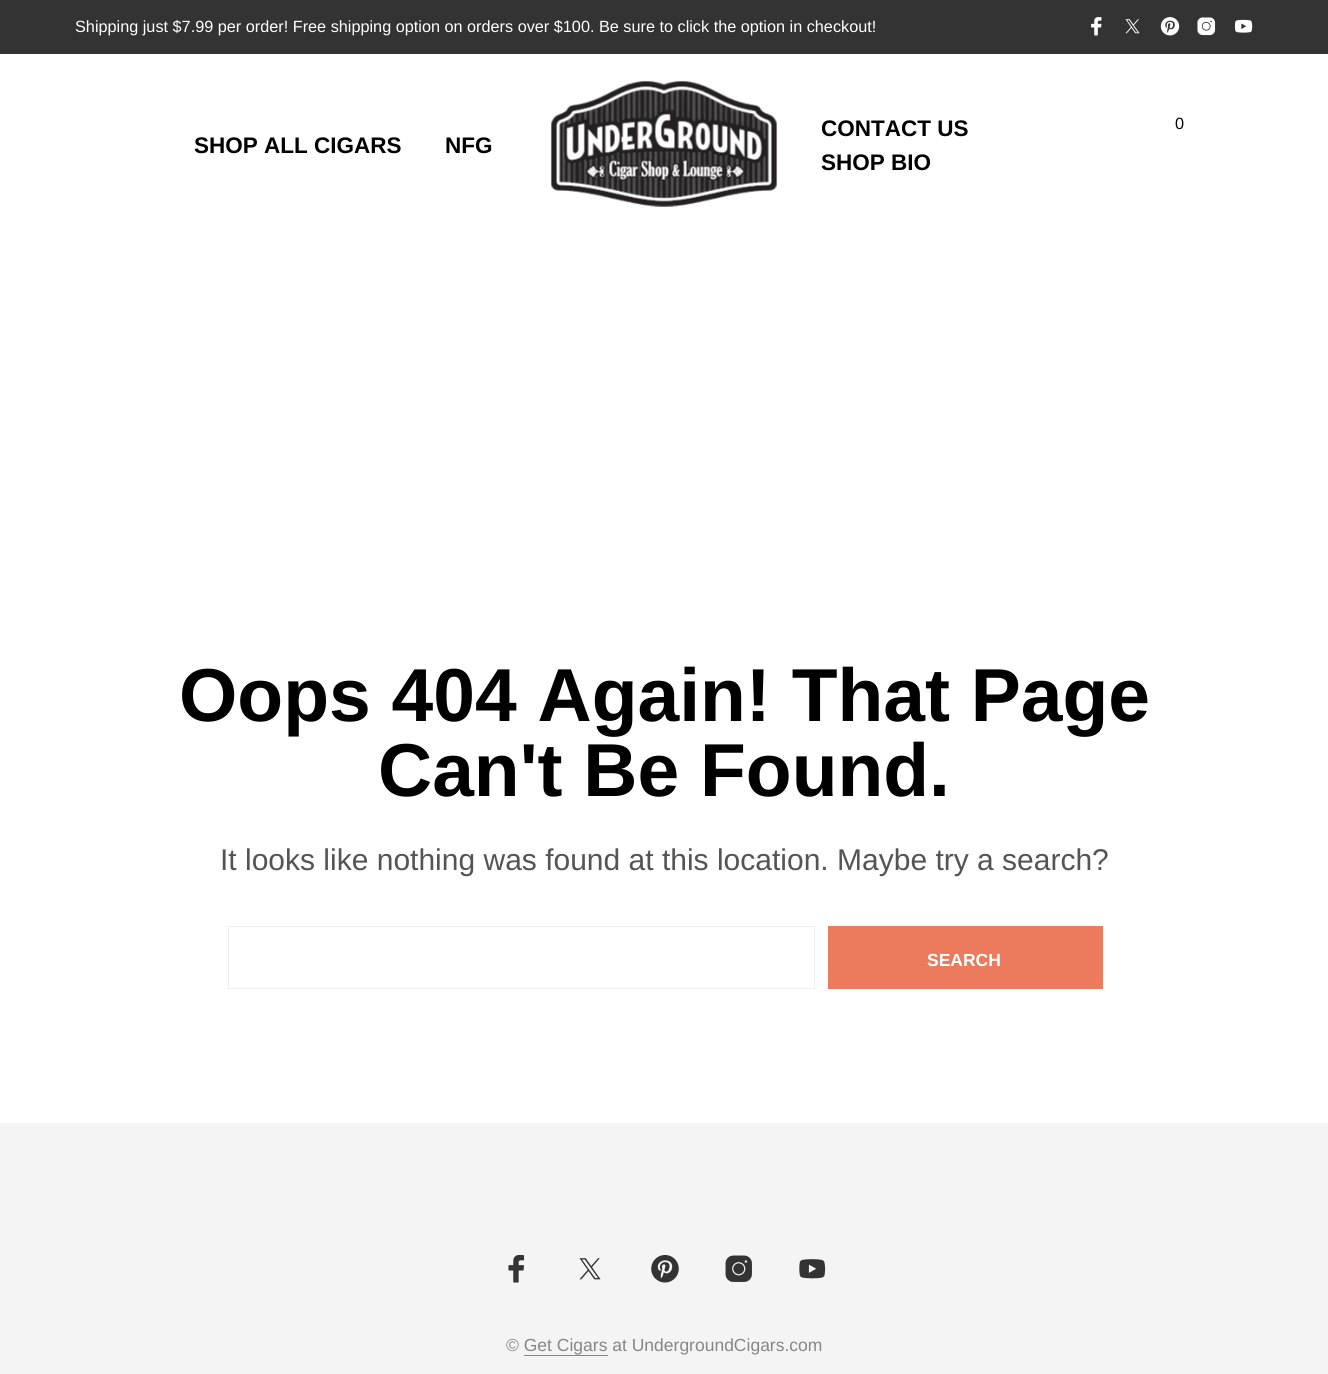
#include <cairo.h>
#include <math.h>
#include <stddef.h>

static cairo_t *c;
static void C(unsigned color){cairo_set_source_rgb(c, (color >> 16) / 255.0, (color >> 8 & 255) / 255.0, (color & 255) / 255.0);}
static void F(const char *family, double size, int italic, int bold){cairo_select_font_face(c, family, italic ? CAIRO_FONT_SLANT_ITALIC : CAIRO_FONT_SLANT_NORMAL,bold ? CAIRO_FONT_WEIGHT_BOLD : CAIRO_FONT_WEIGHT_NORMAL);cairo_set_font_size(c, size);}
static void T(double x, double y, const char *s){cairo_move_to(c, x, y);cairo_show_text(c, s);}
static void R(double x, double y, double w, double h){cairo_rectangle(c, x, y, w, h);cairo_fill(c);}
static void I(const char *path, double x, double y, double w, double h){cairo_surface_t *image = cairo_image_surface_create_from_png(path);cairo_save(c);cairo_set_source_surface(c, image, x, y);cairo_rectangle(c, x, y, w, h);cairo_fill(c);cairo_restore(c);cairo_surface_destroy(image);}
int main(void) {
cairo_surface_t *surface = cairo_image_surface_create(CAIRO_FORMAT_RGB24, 1328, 1374);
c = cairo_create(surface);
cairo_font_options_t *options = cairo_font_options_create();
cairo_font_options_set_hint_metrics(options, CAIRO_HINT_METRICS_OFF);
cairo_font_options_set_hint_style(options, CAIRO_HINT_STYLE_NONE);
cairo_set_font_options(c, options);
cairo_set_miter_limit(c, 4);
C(0xffffff);
cairo_paint(c);
C(0x333333);
R(0,0,1328,54);
F("Liberation Sans",16.25,0,0);
C(0xffffff);
T(75,32,"Shipping just $7.99 per order! Free shipping option on orders over $100. Be sure to click the option in checkout!");
I("1.png",1091,17,11,19);
I("2.png",1125,19,15,15);
I("3.png",1160,17,20,19);
I("4.png",1197,17,19,19);
I("5.png",1234,19,19,14);
F("Liberation Sans",22.5,0,1);
C(0x000000);
T(194,153,"SHOP ALL CIGARS");
T(445,153,"NFG");
I("6.png",550,80,228,127);
T(821,136,"CONTACT US");
T(821,170,"SHOP BIO");
F("Liberation Sans",16.25,0,0);
T(1175,129,"0");
F("Liberation Sans",75,0,1);
T(179,721,"Oops 404 Again! That Page");
T(378,796,"Can't Be Found.");
F("Liberation Sans",30,0,0);
C(0x545454);
T(220,870,"It looks like nothing was found at this location. Maybe try a search?");
cairo_rectangle(c,228.5,926.5,586,62);
C(0xeeeeee);
cairo_set_line_width(c,1);
cairo_stroke(c);
C(0xec7a5c);
R(828,926,275,63);
F("Liberation Sans",17.5,0,1);
C(0xffffff);
T(927,966,"SEARCH");
C(0xf4f4f4);
R(0,1123,1328,251);
I("7.png",508,1254,17,29);
I("8.png",579,1258,22,22);
I("9.png",651,1255,28,28);
I("10.png",725,1255,27,27);
I("11.png",799,1259,27,20);
F("Liberation Sans",17.5,0,0);
C(0x868686);
T(506,1351,"© Get Cigars at UndergroundCigars.com");
R(524,1355,84,1);
cairo_surface_write_to_png(surface, "o.png");
cairo_font_options_destroy(options);
cairo_destroy(c);
cairo_surface_destroy(surface);
return 0;
}
